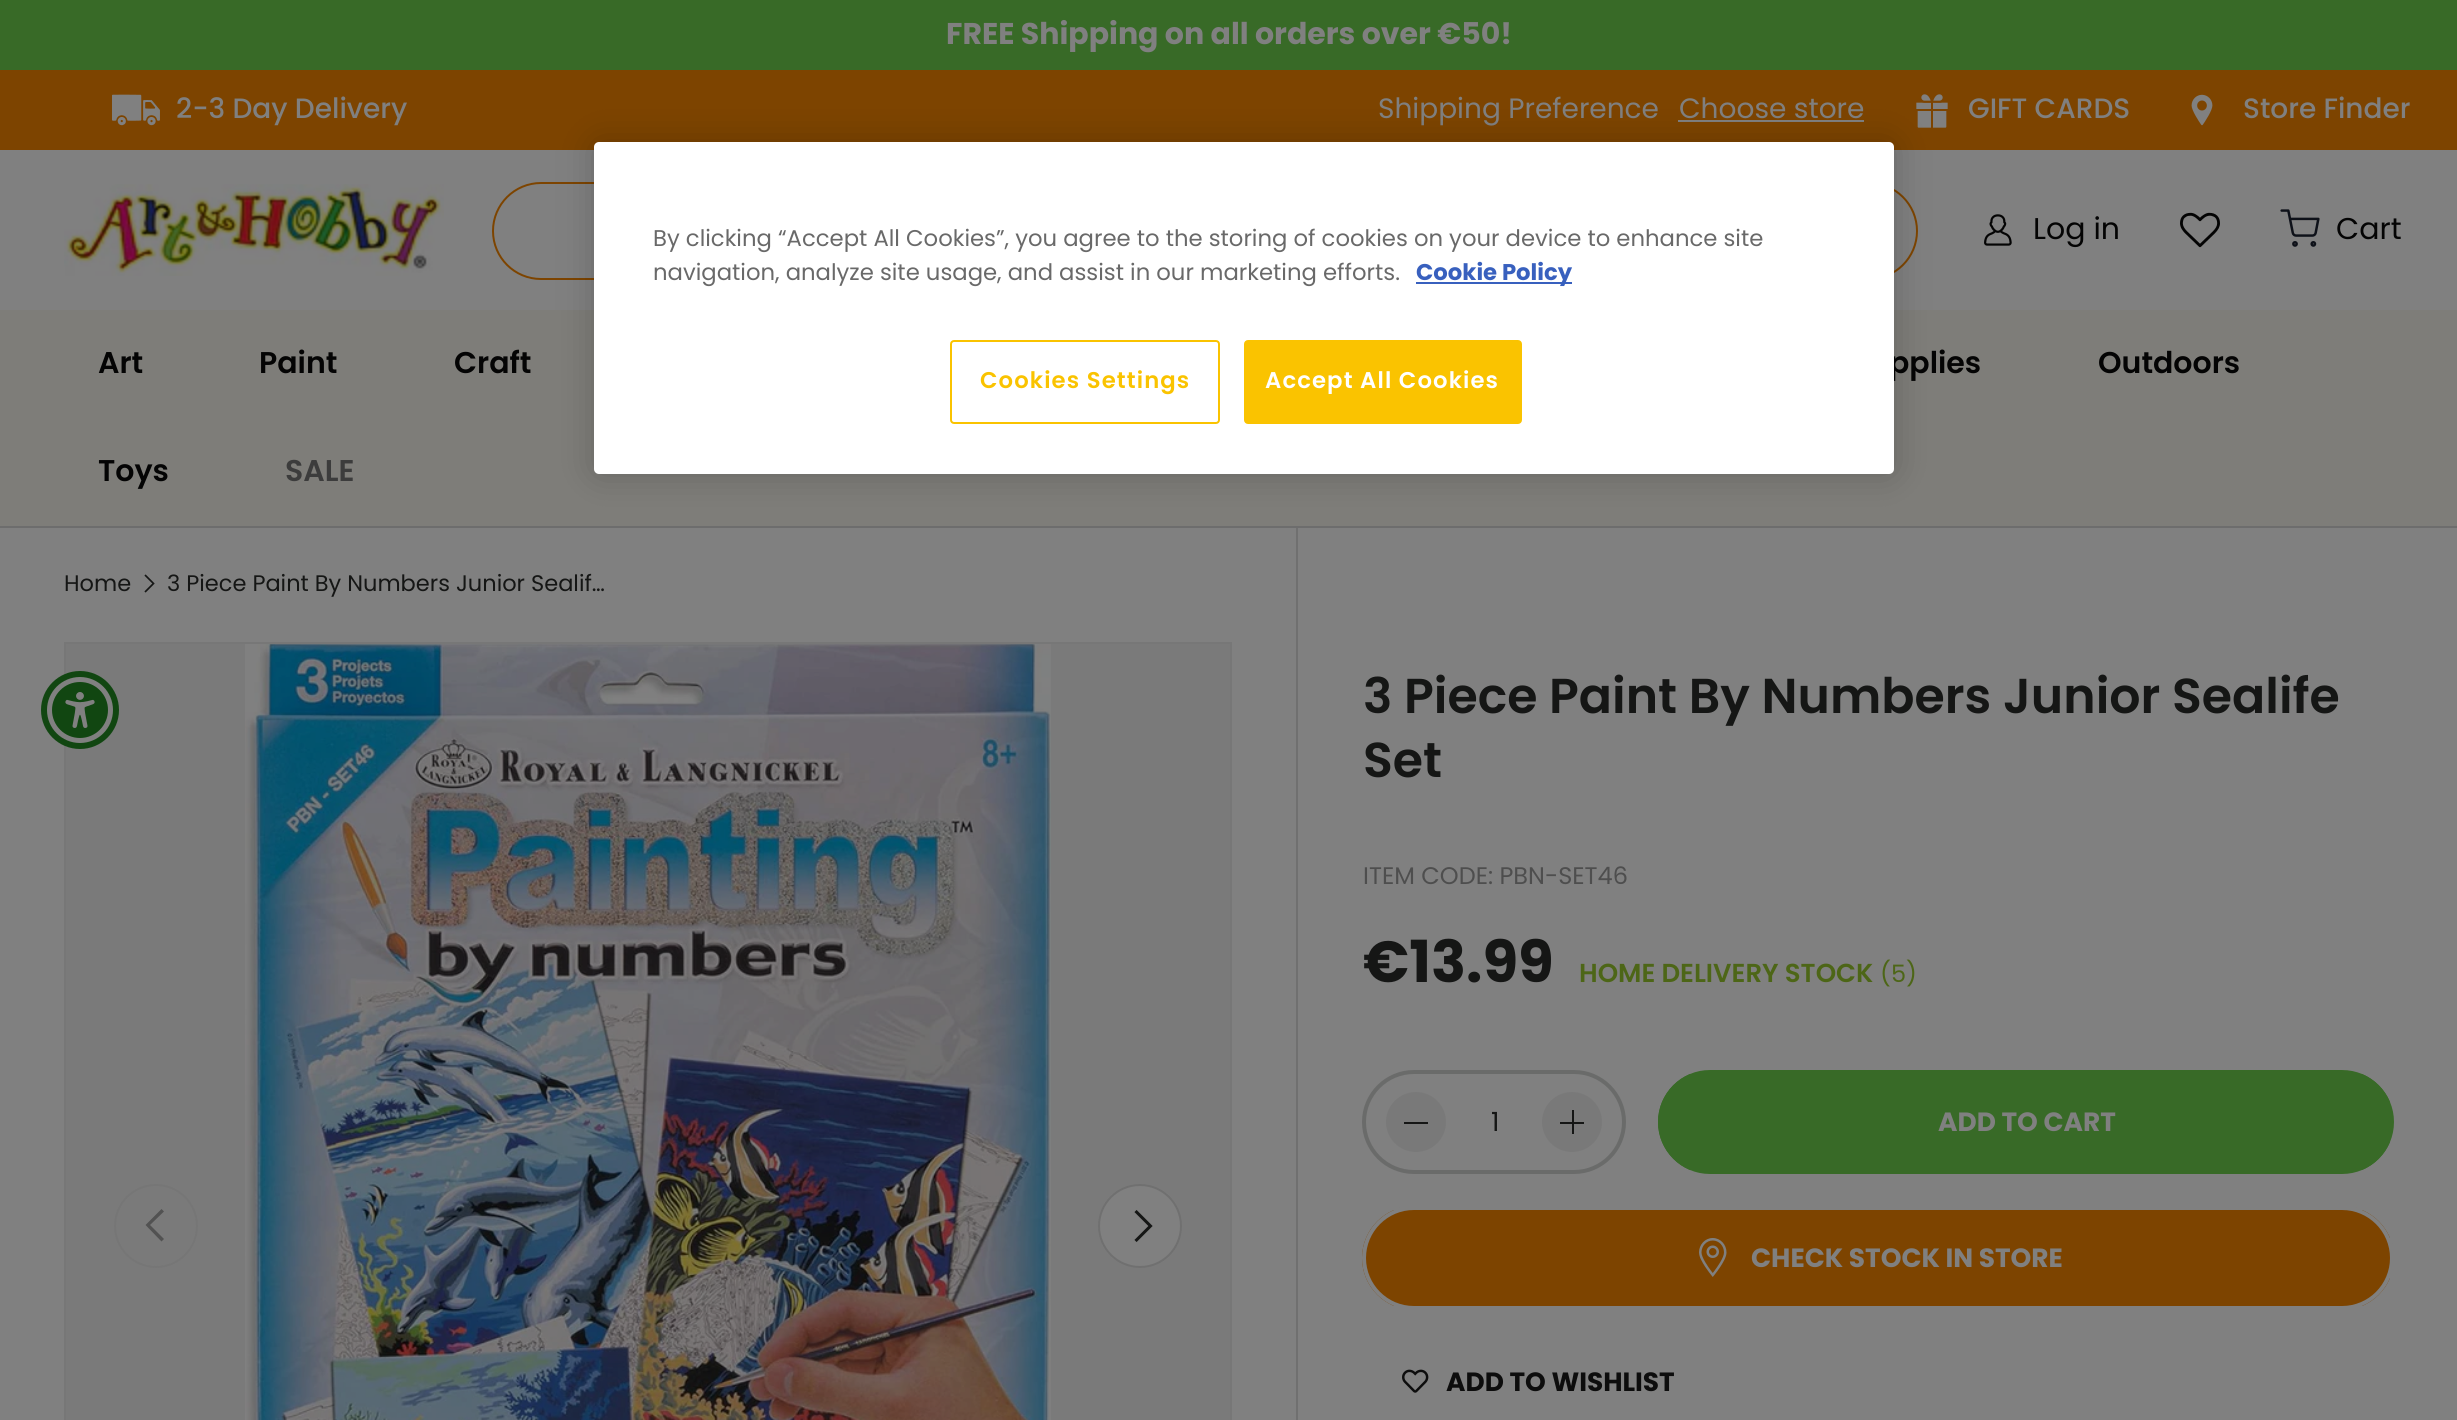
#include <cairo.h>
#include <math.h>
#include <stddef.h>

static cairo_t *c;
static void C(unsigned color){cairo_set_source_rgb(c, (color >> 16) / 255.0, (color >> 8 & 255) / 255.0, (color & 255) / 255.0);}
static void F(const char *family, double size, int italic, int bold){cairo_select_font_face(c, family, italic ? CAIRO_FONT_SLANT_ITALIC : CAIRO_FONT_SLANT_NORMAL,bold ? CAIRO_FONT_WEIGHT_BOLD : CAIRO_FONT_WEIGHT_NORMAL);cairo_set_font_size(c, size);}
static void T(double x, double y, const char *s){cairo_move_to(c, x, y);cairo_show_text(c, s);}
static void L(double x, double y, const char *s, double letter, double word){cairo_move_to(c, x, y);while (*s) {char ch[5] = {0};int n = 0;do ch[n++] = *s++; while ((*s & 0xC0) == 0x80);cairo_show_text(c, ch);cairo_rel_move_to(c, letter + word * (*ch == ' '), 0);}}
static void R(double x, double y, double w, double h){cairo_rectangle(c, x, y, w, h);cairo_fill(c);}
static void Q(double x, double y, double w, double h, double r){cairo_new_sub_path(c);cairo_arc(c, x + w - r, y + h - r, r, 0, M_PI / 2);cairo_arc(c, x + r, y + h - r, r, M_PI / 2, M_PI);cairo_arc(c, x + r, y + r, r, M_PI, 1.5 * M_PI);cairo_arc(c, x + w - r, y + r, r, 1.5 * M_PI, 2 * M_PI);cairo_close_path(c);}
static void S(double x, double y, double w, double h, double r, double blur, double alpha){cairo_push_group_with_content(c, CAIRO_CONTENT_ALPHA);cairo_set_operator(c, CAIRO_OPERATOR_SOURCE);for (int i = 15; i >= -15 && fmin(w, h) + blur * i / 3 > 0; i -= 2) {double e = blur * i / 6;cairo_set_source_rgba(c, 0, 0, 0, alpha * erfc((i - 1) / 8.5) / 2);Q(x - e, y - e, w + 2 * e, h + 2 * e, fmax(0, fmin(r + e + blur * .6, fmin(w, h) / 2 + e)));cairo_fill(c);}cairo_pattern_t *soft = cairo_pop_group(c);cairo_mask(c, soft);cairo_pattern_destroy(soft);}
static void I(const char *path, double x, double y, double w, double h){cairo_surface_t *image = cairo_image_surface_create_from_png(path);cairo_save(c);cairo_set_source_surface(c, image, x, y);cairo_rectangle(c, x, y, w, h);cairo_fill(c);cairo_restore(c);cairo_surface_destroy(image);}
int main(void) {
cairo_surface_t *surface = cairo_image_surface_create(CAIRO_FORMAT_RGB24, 2457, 1420);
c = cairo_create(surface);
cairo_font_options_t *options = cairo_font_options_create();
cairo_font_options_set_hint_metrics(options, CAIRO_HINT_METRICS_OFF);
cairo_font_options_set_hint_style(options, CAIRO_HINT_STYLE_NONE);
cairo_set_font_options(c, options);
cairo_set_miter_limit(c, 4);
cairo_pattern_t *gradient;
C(0x808080);
cairo_paint(c);
C(0x386a27);
R(0,0,2457,70);
F("Poppins",30,0,1);
C(0x808080);
T(946,44,"FREE Shipping on all orders over €50!");
C(0x7d4400);
R(0,70,2457,80);
I("1.png",112,94,48,32);
F("Poppins Medium",28,0,0);
C(0x808080);
T(176,118,"2-3 Day Delivery");
F("Poppins",28,0,0);
T(1378,118,"Shipping Preference");
T(1679,118,"Choose store");
R(1678,120,186,2);
I("2.png",1916,94,32,34);
F("Poppins Medium",28,0,0);
T(1968,118,"GIFT CARDS");
I("3.png",2191,94,22,32);
T(2243,118,"Store Finder");
C(0x6d6d6d);
R(0,526,2457,2);
I("4.png",64,184,380,92);
Q(493,183,1424,96,48);
C(0x7d4400);
cairo_stroke(c);
I("5.png",1984,214,28,32);
F("Poppins",30,0,0);
C(0x040404);
T(2033,239,"Log in");
I("6.png",2180,212,40,36);
I("7.png",2280,209,40,38);
T(2336,239,"Cart");
C(0x7e7d79);
R(0,310,2457,216);
F("Poppins SemiBold",30,0,0);
C(0x040404);
T(98,373,"Art");
T(259,373,"Paint");
T(454,373,"Craft");
T(1889,373,"pplies");
T(2098,373,"Outdoors");
T(98,481,"Toys");
C(0x3c3c3c);
T(285,481,"SALE");
C(0x707070);
R(1296,528,2,892);
C(0x000000);
S(594,142,1300,332,5,18,.2);
C(0xffffff);
Q(594,142,1300,332,5);
cairo_fill(c);
F("Poppins",22.75,0,0);
C(0x696969);
T(653,246,"By clicking “Accept All Cookies”, you agree to the storing of cookies on your device to enhance site");
T(653,280,"navigation, analyze site usage, and assist in our marketing efforts.");
C(0x3860be);
R(1416,282,156,2);
F("Poppins",22.75,0,1);
T(1416,280,"Cookie Policy");
Q(951,341,268,82,3);
C(0xfac300);
cairo_stroke(c);
F("Poppins SemiBold",22.75,0,0);
L(980,388,"Cookies Settings",1.1,0);
Q(1245,341,276,82,3);
cairo_fill_preserve(c);
cairo_stroke(c);
C(0xffffff);
L(1265,388,"Accept All Cookies",1.1,0);
F("Poppins",22.5,0,0);
C(0x151615);
T(64,591,"Home");
cairo_new_path(c);
cairo_move_to(c,145,575);
cairo_line_to(c,153.5,583.5);
cairo_line_to(c,145,592);
cairo_set_line_width(c,1.7);
cairo_stroke(c);
T(167,591,"3 Piece Paint By Numbers Junior Sealif…");
C(0x7a7a7a);
cairo_rectangle(c,65,643,1166,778);
cairo_fill_preserve(c);
C(0x777777);
cairo_set_line_width(c,2);
cairo_stroke(c);
I("8.png",245,644,806,776);
cairo_arc(c,156,1226,41,0,2 * M_PI);
C(0x767676);
cairo_stroke(c);
C(0x525252);
cairo_new_path(c);
cairo_move_to(c,145.5,1225);
cairo_line_to(c,161.5,1209);
cairo_line_to(c,164,1211.5);
cairo_line_to(c,150,1225);
cairo_line_to(c,164,1239);
cairo_line_to(c,161.5,1241.5);
cairo_close_path(c);
cairo_fill(c);
C(0x808080);
cairo_arc(c,1140,1226,42,0,2 * M_PI);
cairo_fill(c);
cairo_arc(c,1140,1226,41,0,2 * M_PI);
cairo_set_source_rgba(c,0.082,0.086,0.082,0.15);
cairo_stroke(c);
cairo_new_path(c);
cairo_move_to(c,1135.5,1211);
cairo_line_to(c,1150.5,1226);
cairo_line_to(c,1135.5,1241);
C(0x151615);
cairo_set_line_width(c,3);
cairo_stroke(c);
F("Poppins SemiBold",49,0,0);
T(1363,713,"3 Piece Paint By Numbers Junior Sealife");
T(1363,777,"Set");
F("Poppins",24,0,0);
C(0x4e4e4e);
T(1363,884,"ITEM CODE: PBN-SET46");
F("Poppins",58,0,1);
C(0x151615);
T(1363,982,"€13.99");
F("Poppins SemiBold",26,0,0);
C(0x4d6617);
T(1579,982,"HOME DELIVERY STOCK");
F("Poppins",24,0,0);
T(1880,982,"(5)");
Q(1364,1072,260,100,50);
C(0x6a6b6a);
cairo_set_line_width(c,4);
cairo_stroke(c);
C(0x797979);
cairo_arc(c,1416,1122,30,0,2 * M_PI);
cairo_fill(c);
C(0x151615);
R(1404,1122,24,2);
F("Poppins",26.4,0,0);
T(1491,1131,"1");
C(0x797979);
cairo_new_path(c);
cairo_arc(c,1572,1122,30,0,2 * M_PI);
cairo_fill(c);
C(0x151615);
R(1560,1122,24,2);
R(1572,1110,2,24);
cairo_save(c);
Q(1658,1070,736,104,52);
cairo_clip(c);
gradient = cairo_pattern_create_linear(259,863,2337,1381);
cairo_pattern_add_color_stop_rgba(gradient,.6,0.282,0.435,0.231,1);
cairo_pattern_add_color_stop_rgba(gradient,.6,0.22,0.416,0.153,1);
cairo_pattern_add_color_stop_rgba(gradient,1,0.22,0.416,0.153,1);
cairo_set_source(c,gradient);
cairo_pattern_destroy(gradient);
R(1658,1074,732,96);
cairo_restore(c);
Q(1660,1072,732,100,50);
C(0x386a27);
cairo_stroke(c);
F("Poppins",26.4,0,1);
C(0x808080);
T(1938,1131,"ADD TO CART");
cairo_save(c);
Q(1362,1206,1032,104,52);
cairo_clip(c);
gradient = cairo_pattern_create_linear(-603,895,2311,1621);
cairo_pattern_add_color_stop_rgba(gradient,.6,0.502,0.502,0.502,.07);
cairo_pattern_add_color_stop_rgba(gradient,.6,0.49,0.267,0,1);
cairo_pattern_add_color_stop_rgba(gradient,1,0.49,0.267,0,1);
cairo_set_source(c,gradient);
cairo_pattern_destroy(gradient);
R(1362,1210,1028,96);
cairo_restore(c);
Q(1364,1208,1028,100,50);
cairo_stroke(c);
I("9.png",1699,1238,28,39);
T(1751,1267,"CHECK STOCK IN STORE");
I("10.png",1402,1369,27,24);
C(0x0d0d0d);
T(1446,1391,"ADD TO WISHLIST");
C(0x114611);
cairo_new_path(c);
cairo_arc(c,80,710,39,0,2 * M_PI);
cairo_fill(c);
C(0x808080);
cairo_arc(c,80,710,33,0,2 * M_PI);
cairo_fill(c);
C(0x114611);
cairo_arc(c,80,710,28,0,2 * M_PI);
cairo_fill(c);
I("11.png",65,692,30,36);
cairo_surface_write_to_png(surface, "o.png");
cairo_font_options_destroy(options);
cairo_destroy(c);
cairo_surface_destroy(surface);
return 0;
}
